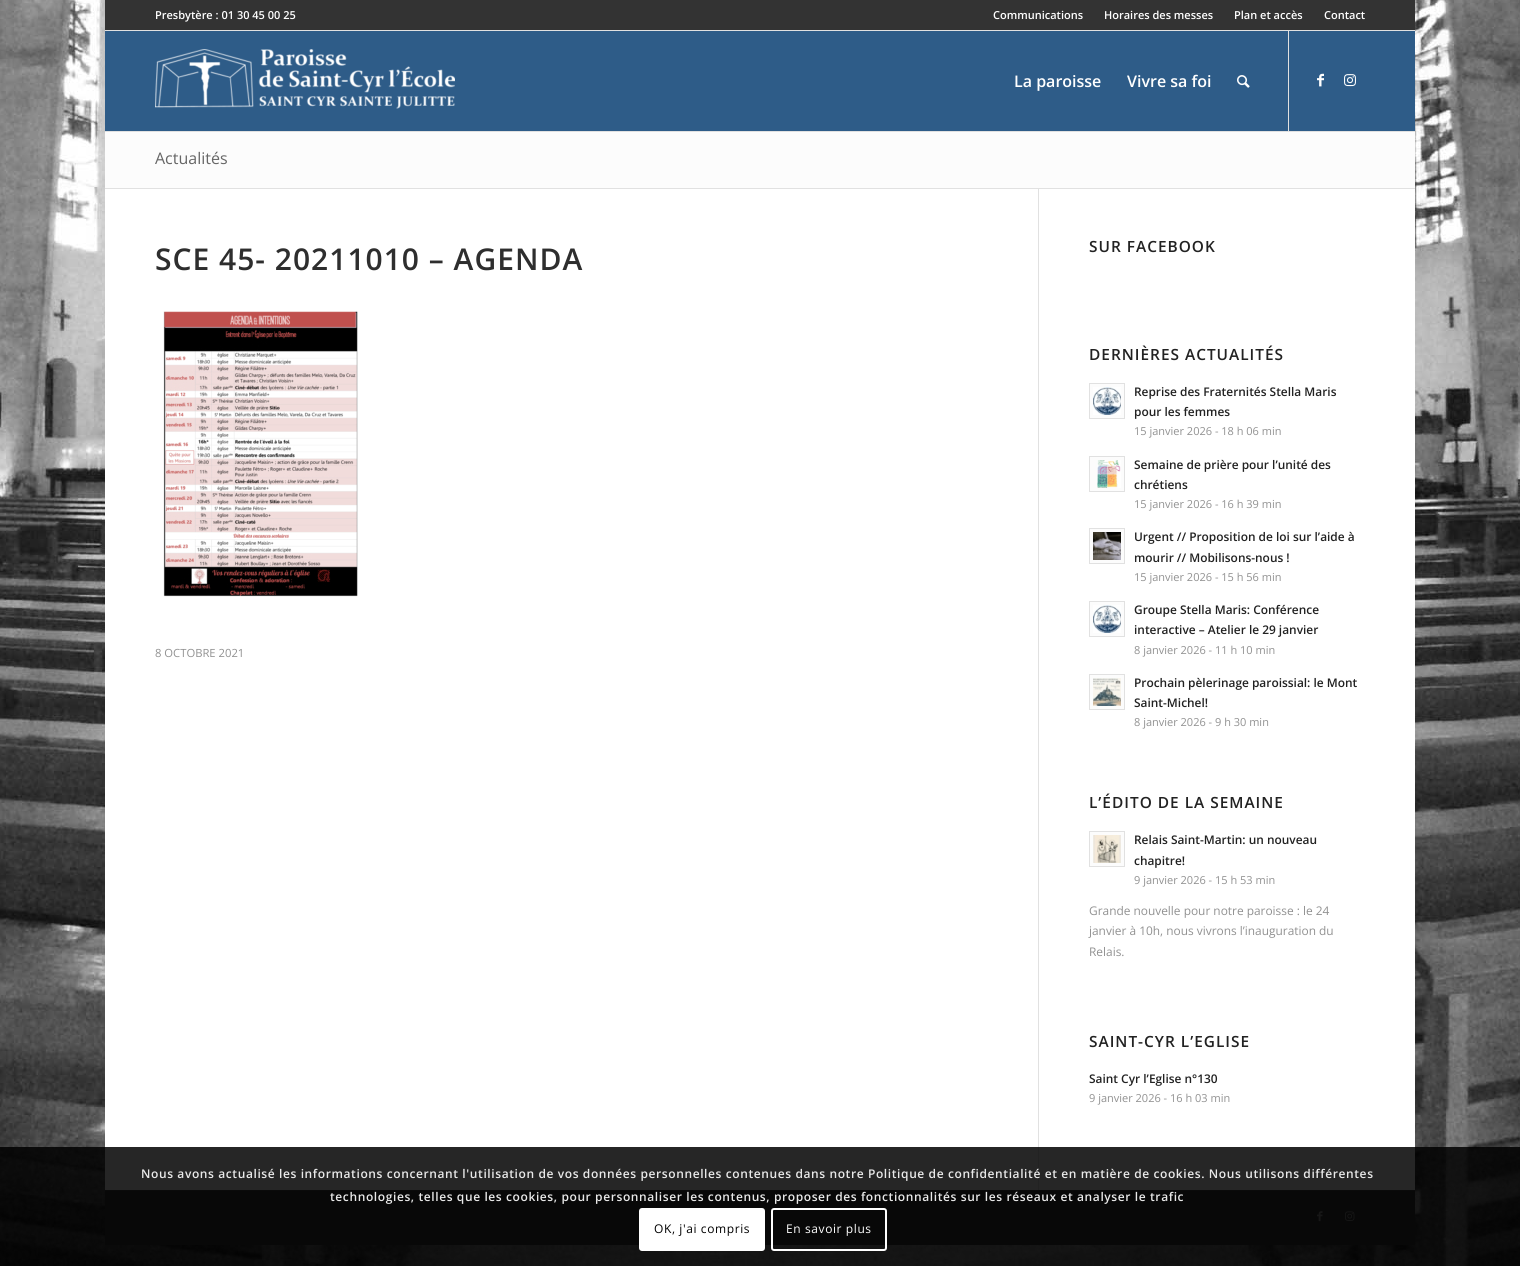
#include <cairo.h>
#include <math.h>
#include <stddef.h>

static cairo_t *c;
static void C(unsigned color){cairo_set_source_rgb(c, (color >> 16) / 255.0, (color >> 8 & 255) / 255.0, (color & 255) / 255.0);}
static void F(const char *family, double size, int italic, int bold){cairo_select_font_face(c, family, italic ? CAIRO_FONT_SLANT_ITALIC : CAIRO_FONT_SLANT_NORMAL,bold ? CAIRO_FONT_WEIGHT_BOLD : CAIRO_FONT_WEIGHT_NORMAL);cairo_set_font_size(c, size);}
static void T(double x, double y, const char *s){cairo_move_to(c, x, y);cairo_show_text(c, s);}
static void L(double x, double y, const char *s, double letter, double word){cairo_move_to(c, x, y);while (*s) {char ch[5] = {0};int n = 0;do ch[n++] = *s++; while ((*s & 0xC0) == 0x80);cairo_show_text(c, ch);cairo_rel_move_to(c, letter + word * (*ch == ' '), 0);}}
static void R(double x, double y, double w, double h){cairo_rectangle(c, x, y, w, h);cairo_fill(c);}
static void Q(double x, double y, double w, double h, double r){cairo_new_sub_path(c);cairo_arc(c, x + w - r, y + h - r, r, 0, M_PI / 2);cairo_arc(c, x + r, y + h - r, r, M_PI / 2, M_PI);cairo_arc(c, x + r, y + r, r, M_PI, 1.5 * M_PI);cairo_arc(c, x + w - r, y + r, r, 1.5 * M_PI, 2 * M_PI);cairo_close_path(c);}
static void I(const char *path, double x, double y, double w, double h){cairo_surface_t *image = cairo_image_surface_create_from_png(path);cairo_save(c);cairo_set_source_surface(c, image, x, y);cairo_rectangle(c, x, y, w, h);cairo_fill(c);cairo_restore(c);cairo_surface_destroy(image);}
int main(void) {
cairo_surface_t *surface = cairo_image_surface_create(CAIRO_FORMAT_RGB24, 1520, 1266);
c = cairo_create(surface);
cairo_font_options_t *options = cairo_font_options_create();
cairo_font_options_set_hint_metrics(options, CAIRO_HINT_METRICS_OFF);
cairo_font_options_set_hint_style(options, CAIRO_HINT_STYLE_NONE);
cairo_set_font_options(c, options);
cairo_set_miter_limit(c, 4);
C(0xffffff);
cairo_paint(c);
I("1.png",0,0,1520,1266);
C(0x333333);
R(105,0,1310,30);
C(0xe1e1e1);
R(105,30,1310,1);
F("Open Sans SemiBold",11,0,0);
C(0xffffff);
T(155,19,"Presbytère : 01 30 45 00 25");
T(993,19,"Communications");
T(1104,19,"Horaires des messes");
T(1234,19,"Plan et accès");
T(1324,19,"Contact");
C(0xe1e1e1);
R(105,131,1310,1);
C(0x2e5c88);
R(105,31,1310,100);
I("2.png",155,49,300,60);
C(0xe1e1e1);
R(1288,31,1,100);
F("Open Sans SemiBold",16,0,0);
C(0xffffff);
T(1014,87,"La paroisse");
T(1127,87,"Vivre sa foi");
I("3.png",1237,75,13,13);
I("4.png",1317,73,7,14);
I("5.png",1344,74,12,13);
R(105,189,1310,1001);
C(0xfcfcfc);
R(105,132,1310,56);
F("Open Sans",16,0,0);
C(0x666666);
T(155,164,"Actualités");
C(0xe1e1e1);
R(105,188,1310,1);
F("Open Sans SemiBold",30,0,0);
C(0x2e2e2e);
L(155,270,"SCE 45- 20211010 – AGENDA",1,0);
I("6.png",163,311,195,286);
F("Open Sans",11.25,0,0);
C(0x919191);
T(155,657,"8 OCTOBRE 2021");
C(0xe1e1e1);
R(1038,189,1,1002);
F("Open Sans SemiBold",15.4,0,0);
C(0x222222);
L(1089,252,"SUR FACEBOOK",1,0);
L(1089,360,"DERNIÈRES ACTUALITÉS",1,0);
C(0xfcfcfc);
cairo_rectangle(c,1089.5,383.5,35,35);
cairo_fill_preserve(c);
C(0xe1e1e1);
cairo_set_line_width(c,1);
cairo_stroke(c);
I("7.png",1093,387,28,28);
F("Open Sans SemiBold",11.9,0,0);
C(0x222222);
T(1134,396,"Reprise des Fraternités Stella Maris");
T(1134,416,"pour les femmes");
F("Open Sans",11,0,0);
C(0x919191);
T(1134,435,"15 janvier 2026 - 18 h 06 min");
C(0xfcfcfc);
cairo_rectangle(c,1089.5,456.5,35,35);
cairo_fill_preserve(c);
C(0xe1e1e1);
cairo_stroke(c);
I("8.png",1097,460,24,28);
F("Open Sans SemiBold",11.9,0,0);
C(0x222222);
T(1134,469,"Semaine de prière pour l’unité des");
T(1134,489,"chrétiens");
F("Open Sans",11,0,0);
C(0x919191);
T(1134,508,"15 janvier 2026 - 16 h 39 min");
C(0xfcfcfc);
cairo_rectangle(c,1089.5,528.5,35,35);
cairo_fill_preserve(c);
C(0xe1e1e1);
cairo_stroke(c);
I("9.png",1093,532,28,28);
F("Open Sans SemiBold",11.9,0,0);
C(0x222222);
T(1134,541,"Urgent // Proposition de loi sur l’aide à");
T(1134,562,"mourir // Mobilisons-nous !");
F("Open Sans",11,0,0);
C(0x919191);
T(1134,581,"15 janvier 2026 - 15 h 56 min");
C(0xfcfcfc);
cairo_rectangle(c,1089.5,601.5,35,35);
cairo_fill_preserve(c);
C(0xe1e1e1);
cairo_stroke(c);
I("10.png",1093,605,28,28);
F("Open Sans SemiBold",11.9,0,0);
C(0x222222);
T(1134,614,"Groupe Stella Maris: Conférence");
T(1134,634,"interactive – Atelier le 29 janvier");
F("Open Sans",11,0,0);
C(0x919191);
T(1134,654,"8 janvier 2026 - 11 h 10 min");
C(0xfcfcfc);
cairo_rectangle(c,1089.5,674.5,35,35);
cairo_fill_preserve(c);
C(0xe1e1e1);
cairo_stroke(c);
I("11.png",1093,678,28,28);
F("Open Sans SemiBold",11.9,0,0);
C(0x222222);
T(1134,687,"Prochain pèlerinage paroissial: le Mont");
T(1134,707,"Saint-Michel!");
F("Open Sans",11,0,0);
C(0x919191);
T(1134,726,"8 janvier 2026 - 9 h 30 min");
F("Open Sans SemiBold",15.4,0,0);
C(0x222222);
L(1089,808,"L’ÉDITO DE LA SEMAINE",1,0);
C(0xfcfcfc);
cairo_rectangle(c,1089.5,831.5,35,35);
cairo_fill_preserve(c);
C(0xe1e1e1);
cairo_stroke(c);
I("12.png",1093,835,28,28);
F("Open Sans SemiBold",11.9,0,0);
C(0x222222);
T(1134,844,"Relais Saint-Martin: un nouveau");
T(1134,865,"chapitre!");
F("Open Sans",11,0,0);
C(0x919191);
T(1134,884,"9 janvier 2026 - 15 h 53 min");
F("Open Sans",11.9,0,0);
T(1089,915,"Grande nouvelle pour notre paroisse : le 24");
T(1089,935,"janvier à 10h, nous vivrons l’inauguration du");
T(1089,956,"Relais.");
F("Open Sans SemiBold",15.4,0,0);
C(0x222222);
L(1089,1047,"SAINT-CYR L’EGLISE",1,0);
F("Open Sans SemiBold",11.9,0,0);
T(1089,1083,"Saint Cyr l’Eglise n°130");
F("Open Sans",11,0,0);
C(0x919191);
T(1089,1102,"9 janvier 2026 - 16 h 03 min");
C(0x333333);
R(105,1191,1310,54);
C(0x444444);
R(105,1190,1310,1);
I("13.png",1317,1211,6,11);
I("14.png",1345,1211,10,10);
cairo_set_source_rgba(c,0,0,0,0.85);
R(0,1147,1520,119);
F("Open Sans SemiBold",12,0,0);
C(0xe9e9e9);
L(141,1178,"Nous avons actualisé les informations concernant l'utilisation de vos données personnelles contenues dans notre Politique de confidentialité et en matière de cookies. Nous utilisons différentes",.6,0);
L(330,1201,"technologies, telles que les cookies, pour personnaliser les contenus, proposer des fonctionnalités sur les réseaux et analyser le trafic",.6,0);
C(0xffffff);
Q(639,1208,126,43,3);
cairo_fill(c);
F("Open Sans",12,0,0);
C(0x000000);
L(654,1233,"OK, j'ai compris",.6,0);
Q(772,1209,114,41,2);
C(0xffffff);
cairo_set_line_width(c,2);
cairo_stroke(c);
L(786,1233,"En savoir plus",.6,0);
cairo_surface_write_to_png(surface, "o.png");
cairo_font_options_destroy(options);
cairo_destroy(c);
cairo_surface_destroy(surface);
return 0;
}
